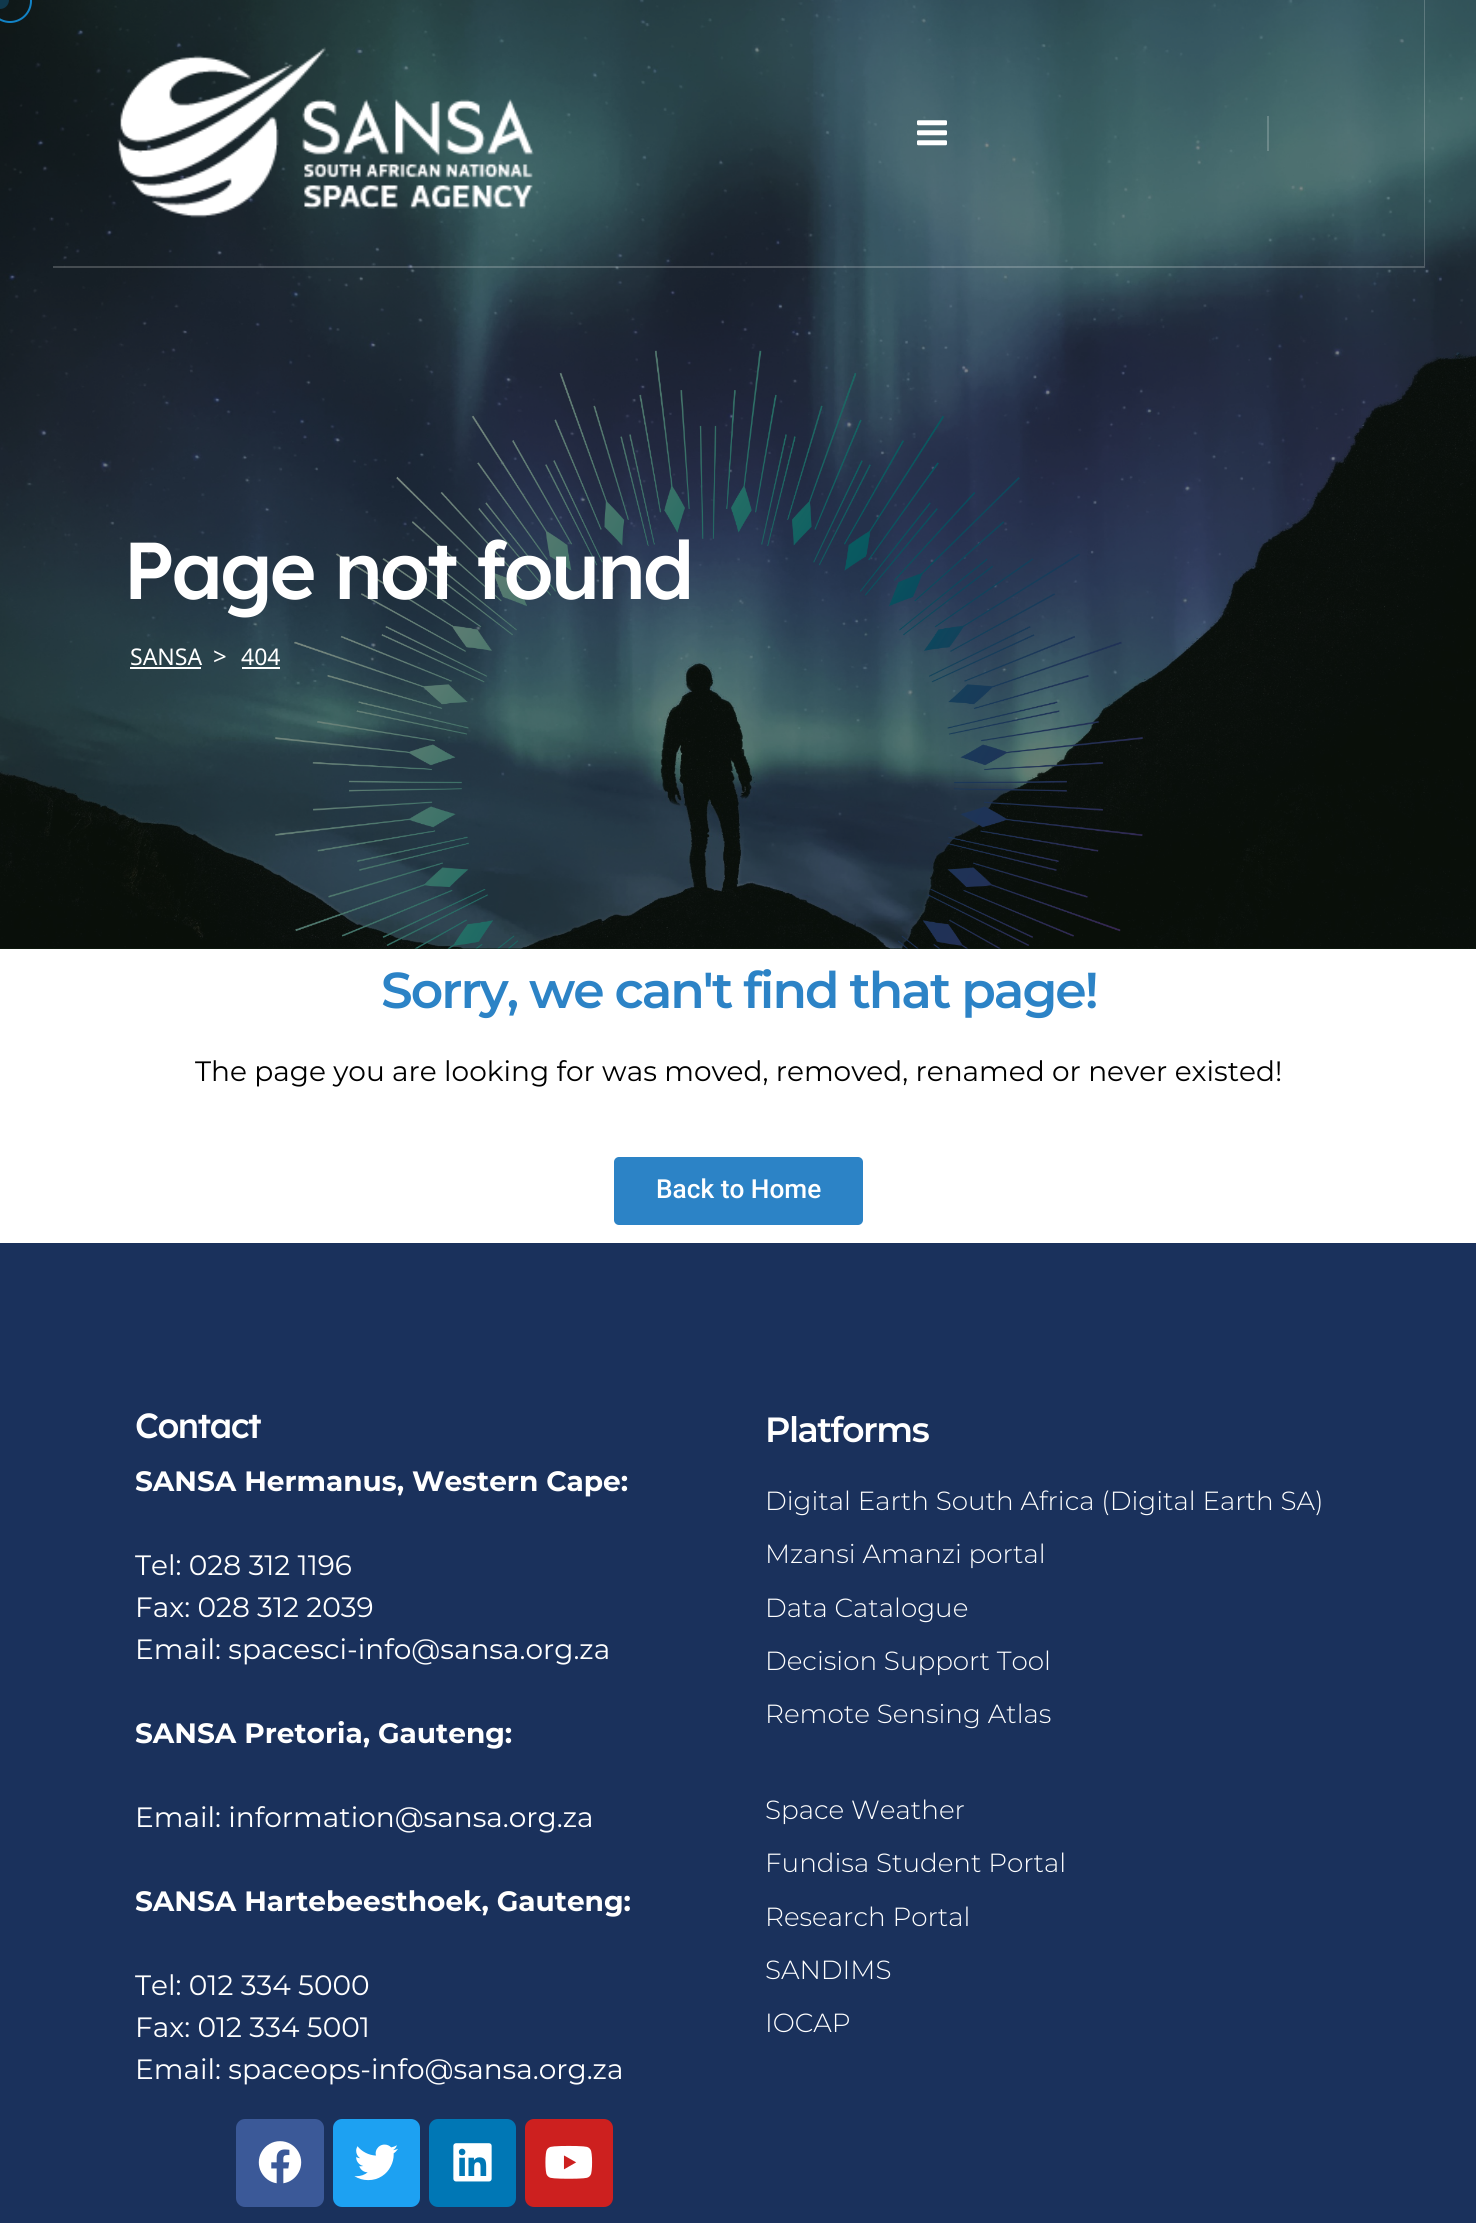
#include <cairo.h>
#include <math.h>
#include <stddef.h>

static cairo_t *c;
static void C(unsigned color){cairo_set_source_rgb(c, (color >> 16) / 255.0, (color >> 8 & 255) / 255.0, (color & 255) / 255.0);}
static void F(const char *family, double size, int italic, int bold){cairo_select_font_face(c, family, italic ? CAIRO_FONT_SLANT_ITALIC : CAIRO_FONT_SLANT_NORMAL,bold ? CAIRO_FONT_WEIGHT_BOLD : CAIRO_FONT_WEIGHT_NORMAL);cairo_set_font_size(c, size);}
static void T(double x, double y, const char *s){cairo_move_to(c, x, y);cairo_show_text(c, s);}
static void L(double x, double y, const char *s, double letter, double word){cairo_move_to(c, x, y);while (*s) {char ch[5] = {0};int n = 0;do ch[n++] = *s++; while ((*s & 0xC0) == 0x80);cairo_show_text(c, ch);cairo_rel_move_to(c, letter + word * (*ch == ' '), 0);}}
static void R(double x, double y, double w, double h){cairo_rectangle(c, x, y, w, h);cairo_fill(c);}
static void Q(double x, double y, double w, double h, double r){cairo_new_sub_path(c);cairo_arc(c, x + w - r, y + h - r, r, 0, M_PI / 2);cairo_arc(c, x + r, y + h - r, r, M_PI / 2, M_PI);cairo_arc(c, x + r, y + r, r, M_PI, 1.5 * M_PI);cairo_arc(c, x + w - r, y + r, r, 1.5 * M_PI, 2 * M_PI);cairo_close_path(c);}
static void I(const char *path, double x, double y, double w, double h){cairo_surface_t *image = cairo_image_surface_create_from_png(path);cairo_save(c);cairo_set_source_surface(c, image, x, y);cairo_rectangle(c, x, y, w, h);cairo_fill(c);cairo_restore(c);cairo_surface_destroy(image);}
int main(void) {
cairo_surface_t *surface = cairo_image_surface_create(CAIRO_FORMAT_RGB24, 1476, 2223);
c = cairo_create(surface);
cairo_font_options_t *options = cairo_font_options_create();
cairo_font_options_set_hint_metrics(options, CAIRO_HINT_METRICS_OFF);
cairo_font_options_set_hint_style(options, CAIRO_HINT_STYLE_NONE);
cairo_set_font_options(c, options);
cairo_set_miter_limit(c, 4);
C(0xffffff);
cairo_paint(c);
C(0x121f12);
R(0,0,1476,949);
I("3.png",0,0,1476,949);
cairo_arc(c,10,1,21,0,2 * M_PI);
C(0x1283c6);
cairo_stroke(c);
C(0x10384c);
cairo_arc(c,0,0,9,0,2 * M_PI);
cairo_fill(c);
cairo_set_source_rgba(c,1,1,1,0.2);
cairo_new_path(c);
cairo_move_to(c,53,266);
cairo_line_to(c,53,268);
cairo_line_to(c,1425,268);
cairo_line_to(c,1425,0);
cairo_line_to(c,1424,0);
cairo_line_to(c,1424,266);
cairo_close_path(c);
cairo_fill(c);
I("1.png",117,47,417,171);
I("2.png",917,120,30,26);
R(1267,116,2,35);
F("Lexend Medium",80.5,0,0);
C(0xffffff);
L(123,599,"Page not found",-3.25,0);
F("Noto Sans",23,0,0);
T(130,665,"SANSA");
R(130,667,71,2);
F("Noto Sans",24,0,0);
T(213,665,">");
F("Noto Sans",23,0,0);
T(241,665,"404");
R(242,667,38,2);
F("Montserrat SemiBold",50.4,0,0);
C(0x2c83c6);
L(381,1008,"Sorry, we can't find that page!",-2,0);
F("Montserrat",28,0,0);
C(0x000000);
T(195,1081,"The page you are looking for was moved, removed, renamed or never existed!");
C(0x2c83c6);
Q(614,1157,249,68,5);
cairo_fill(c);
F("Roboto Medium",26.25,0,0);
C(0xffffff);
T(656,1198,"Back to Home");
C(0x1a315c);
R(0,1243,1476,980);
F("Lexend Medium",35,0,0);
C(0xffffff);
L(135,1438,"Contact",-1.5,0);
F("Montserrat",28,0,1);
T(135,1491,"SANSA Hermanus, Western Cape:");
F("Montserrat",28,0,0);
T(135,1575,"Tel: 028 312 1196");
T(135,1617,"Fax: 028 312 2039");
T(135,1659,"Email: spacesci-info@sansa.org.za");
F("Montserrat",28,0,1);
T(135,1743,"SANSA Pretoria, Gauteng:");
F("Montserrat",28,0,0);
T(135,1827,"Email: information@sansa.org.za");
F("Montserrat",28,0,1);
T(135,1911,"SANSA Hartebeesthoek, Gauteng:");
F("Montserrat",28,0,0);
T(135,1995,"Tel: 012 334 5000");
T(135,2037,"Fax: 012 334 5001");
T(135,2079,"Email: spaceops-info@sansa.org.za");
F("Montserrat SemiBold",35,0,0);
L(765,1442,"Platforms",-1.5,0);
F("Montserrat Light",26.25,0,0);
T(765,1510,"Digital Earth South Africa (Digital Earth SA)");
T(765,1563,"Mzansi Amanzi portal");
T(765,1617,"Data Catalogue");
T(765,1670,"Decision Support Tool");
T(765,1723,"Remote Sensing Atlas");
T(765,1819,"Space Weather");
T(765,1872,"Fundisa Student Portal");
T(765,1926,"Research Portal");
T(765,1979,"SANDIMS");
T(765,2032,"IOCAP");
C(0x3b5998);
Q(236,2119,88,88,9);
cairo_fill(c);
I("4.png",258,2141,44,43);
C(0x1da1f2);
Q(333,2119,87,88,9);
cairo_fill(c);
I("5.png",354,2144,44,37);
C(0x0077b5);
Q(429,2119,87,88,9);
cairo_fill(c);
I("6.png",453,2143,39,39);
C(0xcd201f);
Q(525,2119,88,88,9);
cairo_fill(c);
I("7.png",545,2145,48,34);
cairo_surface_write_to_png(surface, "o.png");
cairo_font_options_destroy(options);
cairo_destroy(c);
cairo_surface_destroy(surface);
return 0;
}
